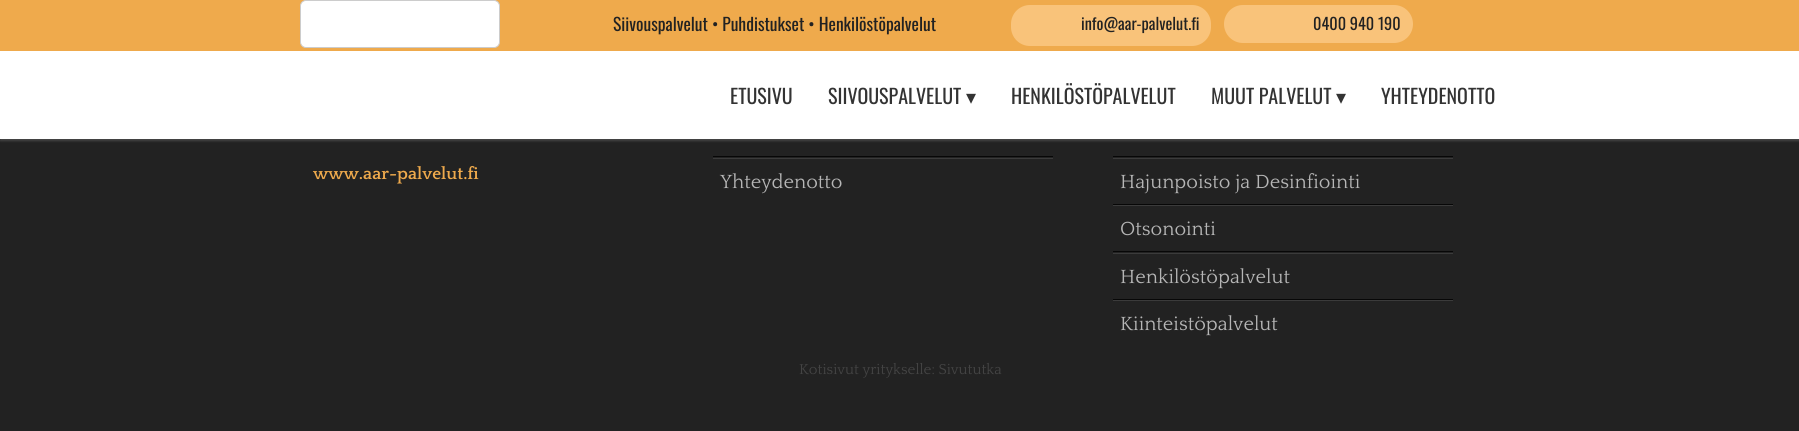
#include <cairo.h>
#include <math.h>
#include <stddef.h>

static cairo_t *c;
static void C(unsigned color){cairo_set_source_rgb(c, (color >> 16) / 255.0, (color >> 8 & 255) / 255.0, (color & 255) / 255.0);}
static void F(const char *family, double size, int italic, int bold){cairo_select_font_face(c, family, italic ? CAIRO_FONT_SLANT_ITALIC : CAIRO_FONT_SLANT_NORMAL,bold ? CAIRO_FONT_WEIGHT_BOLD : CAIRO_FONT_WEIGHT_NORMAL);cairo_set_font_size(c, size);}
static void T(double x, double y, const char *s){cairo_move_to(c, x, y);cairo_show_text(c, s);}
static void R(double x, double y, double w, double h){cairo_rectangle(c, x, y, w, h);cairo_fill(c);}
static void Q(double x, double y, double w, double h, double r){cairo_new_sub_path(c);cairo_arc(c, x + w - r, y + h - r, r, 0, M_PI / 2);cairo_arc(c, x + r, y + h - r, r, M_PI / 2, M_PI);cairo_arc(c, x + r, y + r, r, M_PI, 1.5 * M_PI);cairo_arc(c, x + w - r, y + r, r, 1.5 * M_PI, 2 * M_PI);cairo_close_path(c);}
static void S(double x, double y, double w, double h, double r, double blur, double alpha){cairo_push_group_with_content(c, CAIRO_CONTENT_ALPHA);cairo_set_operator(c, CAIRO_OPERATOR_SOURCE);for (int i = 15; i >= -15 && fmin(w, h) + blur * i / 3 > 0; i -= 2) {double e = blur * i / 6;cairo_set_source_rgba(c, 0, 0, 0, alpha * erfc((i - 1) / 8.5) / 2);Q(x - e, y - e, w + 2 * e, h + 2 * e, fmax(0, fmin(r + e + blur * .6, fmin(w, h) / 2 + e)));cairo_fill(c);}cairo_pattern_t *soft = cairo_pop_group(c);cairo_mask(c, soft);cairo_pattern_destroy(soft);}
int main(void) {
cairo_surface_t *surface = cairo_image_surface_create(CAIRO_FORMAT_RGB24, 1799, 431);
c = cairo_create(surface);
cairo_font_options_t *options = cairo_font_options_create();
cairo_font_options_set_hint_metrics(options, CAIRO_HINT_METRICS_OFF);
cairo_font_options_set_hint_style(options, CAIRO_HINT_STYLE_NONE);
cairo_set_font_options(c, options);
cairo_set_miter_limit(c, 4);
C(0x222222);
cairo_paint(c);
C(0x969696);
S(0,3,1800,138,0,1,.3);
C(0xffffff);
R(0,51,1799,88);
C(0xefaa4c);
R(0,0,1799,51);
F("Oswald",17.5,0,0);
C(0x222222);
T(613,31,"Siivouspalvelut • Puhdistukset • Henkilöstöpalvelut");
C(0xf9c37a);
Q(1011,5,200,41,19);
cairo_fill(c);
F("Oswald",16.25,0,0);
C(0x222222);
T(1081,30,"info@aar-palvelut.fi");
C(0xf9c37a);
Q(1224,5,189,38,19);
cairo_fill(c);
C(0x222222);
T(1313,30,"0400 940 190");
C(0xffffff);
Q(300.5,.5,199,47,5.5);
cairo_fill_preserve(c);
C(0xcccccc);
cairo_set_line_width(c,1);
cairo_stroke(c);
F("Oswald",20,0,0);
C(0x333333);
T(730,104,"ETUSIVU");
T(828,104,"SIIVOUSPALVELUT");
F("DejaVu Sans",20,0,0);
T(966,104,"▾");
F("Oswald",20,0,0);
T(1011,104,"HENKILÖSTÖPALVELUT");
T(1211,104,"MUUT PALVELUT");
F("DejaVu Sans",20,0,0);
T(1336,104,"▾");
F("Oswald",20,0,0);
T(1381,104,"YHTEYDENOTTO");
F("Quattrocento",17.5,0,1);
C(0xefaa4c);
T(313,179,"www.aar-palvelut.fi");
C(0x070707);
R(713,156,340,1);
C(0x3b3b3b);
R(713,158,340,1);
F("Quattrocento",20,0,0);
C(0xb6b6b6);
T(720,188,"Yhteydenotto");
C(0x070707);
R(1113,156,340,1);
C(0x3b3b3b);
R(1113,158,340,1);
C(0x070707);
R(1113,204,340,1);
C(0xb6b6b6);
T(1120,188,"Hajunpoisto ja Desinfiointi");
C(0x3b3b3b);
R(1113,205,340,1);
C(0x070707);
R(1113,251,340,1);
C(0xb6b6b6);
T(1120,235,"Otsonointi");
C(0x3b3b3b);
R(1113,253,340,1);
C(0x070707);
R(1113,299,340,1);
C(0xb6b6b6);
T(1120,283,"Henkilöstöpalvelut");
C(0x3b3b3b);
R(1113,300,340,1);
C(0xb6b6b6);
T(1120,330,"Kiinteistöpalvelut");
F("Quattrocento",15,0,0);
C(0x444444);
T(799,374,"Kotisivut yritykselle: Sivututka");
cairo_surface_write_to_png(surface, "o.png");
cairo_font_options_destroy(options);
cairo_destroy(c);
cairo_surface_destroy(surface);
return 0;
}
